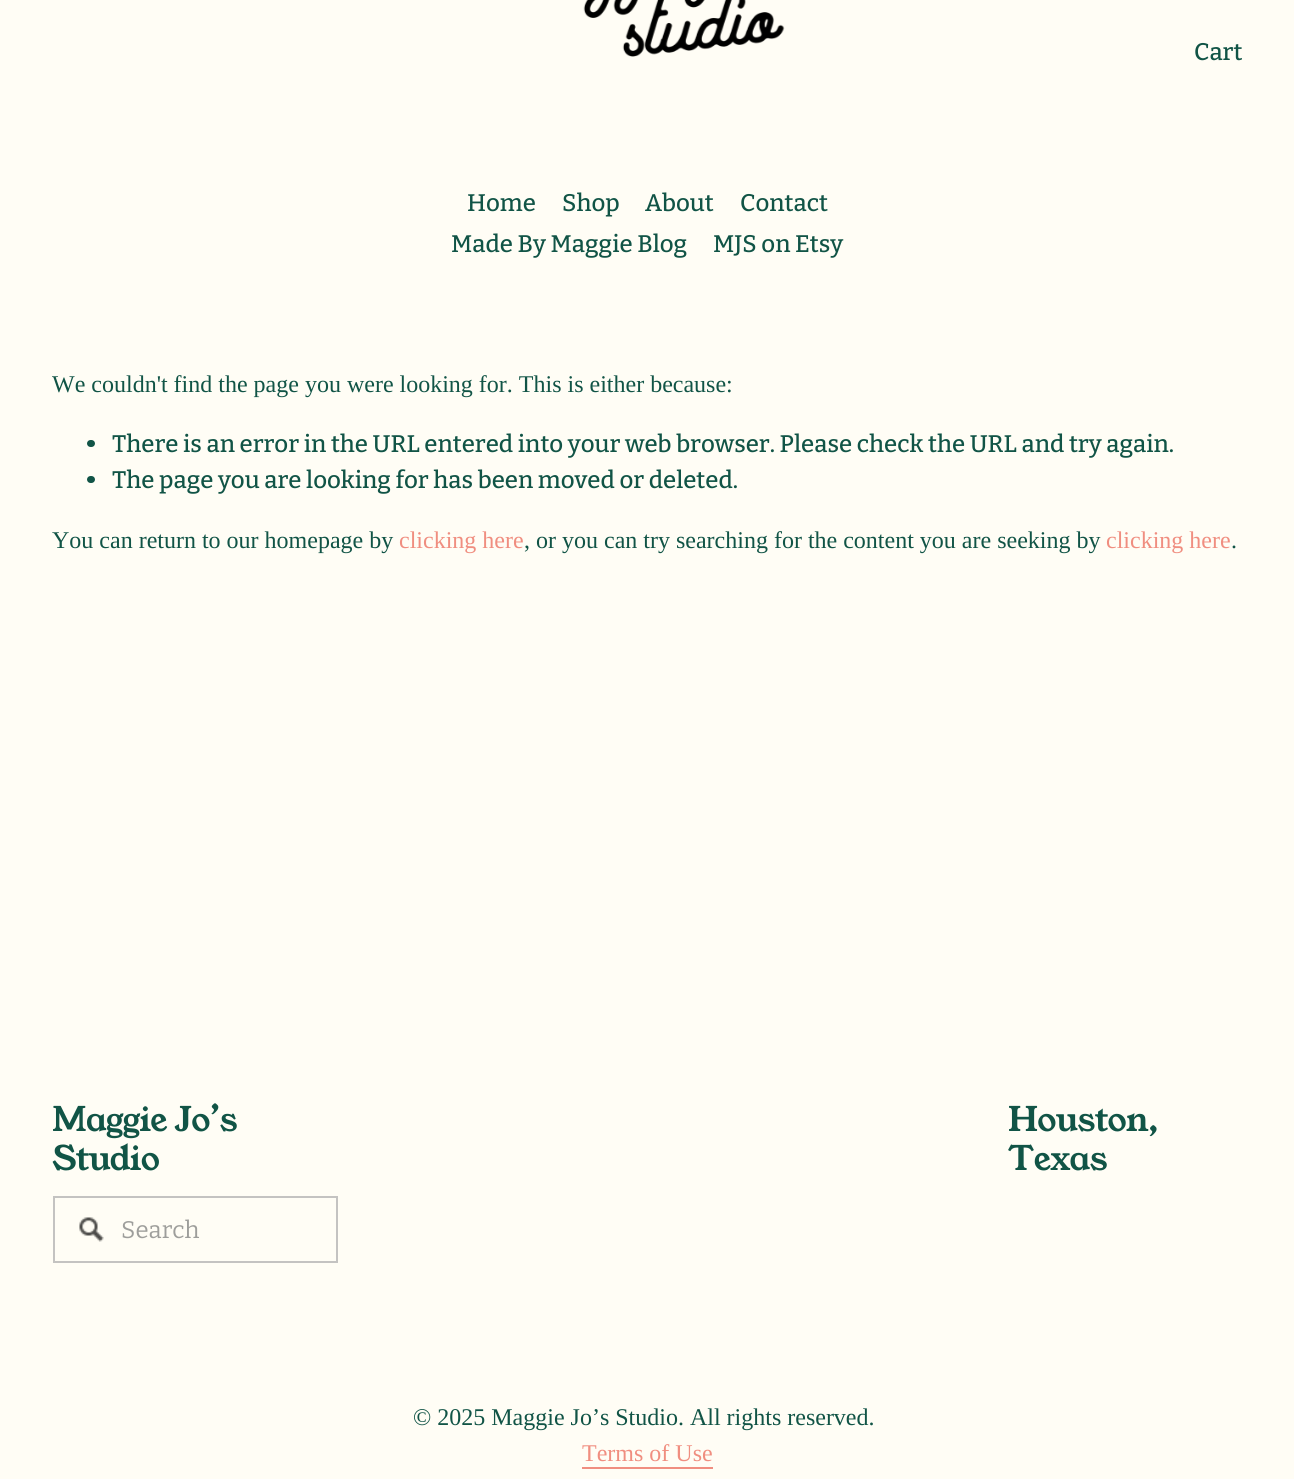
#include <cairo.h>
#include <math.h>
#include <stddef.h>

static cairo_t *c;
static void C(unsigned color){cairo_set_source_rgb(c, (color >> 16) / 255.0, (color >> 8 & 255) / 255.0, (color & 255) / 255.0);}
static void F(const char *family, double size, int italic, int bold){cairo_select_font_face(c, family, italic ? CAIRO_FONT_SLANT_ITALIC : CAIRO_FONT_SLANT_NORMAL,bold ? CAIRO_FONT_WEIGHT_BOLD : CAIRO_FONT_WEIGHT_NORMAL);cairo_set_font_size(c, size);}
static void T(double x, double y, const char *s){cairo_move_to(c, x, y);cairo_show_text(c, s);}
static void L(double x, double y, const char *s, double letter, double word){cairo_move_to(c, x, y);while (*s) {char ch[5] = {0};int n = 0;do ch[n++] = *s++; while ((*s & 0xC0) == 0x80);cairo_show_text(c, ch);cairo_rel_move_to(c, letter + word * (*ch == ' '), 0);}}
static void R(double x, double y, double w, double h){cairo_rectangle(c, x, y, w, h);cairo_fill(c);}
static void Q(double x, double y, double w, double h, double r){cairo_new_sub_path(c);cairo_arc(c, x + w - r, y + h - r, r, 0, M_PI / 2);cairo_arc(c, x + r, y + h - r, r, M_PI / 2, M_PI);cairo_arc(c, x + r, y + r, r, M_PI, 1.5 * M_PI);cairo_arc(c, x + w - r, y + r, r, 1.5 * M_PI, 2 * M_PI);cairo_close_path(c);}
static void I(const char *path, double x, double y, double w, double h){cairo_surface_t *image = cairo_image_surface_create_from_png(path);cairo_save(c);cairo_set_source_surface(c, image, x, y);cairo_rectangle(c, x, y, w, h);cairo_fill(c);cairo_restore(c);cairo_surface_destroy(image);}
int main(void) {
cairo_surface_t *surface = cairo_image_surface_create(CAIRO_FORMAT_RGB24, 1294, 1479);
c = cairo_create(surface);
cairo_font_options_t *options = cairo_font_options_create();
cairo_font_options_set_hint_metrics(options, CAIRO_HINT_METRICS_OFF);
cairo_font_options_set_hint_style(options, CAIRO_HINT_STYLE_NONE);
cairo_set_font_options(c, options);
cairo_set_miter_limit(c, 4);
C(0xfffdf5);
cairo_paint(c);
F("Bitter Medium",24,0,0);
C(0x115446);
T(1194,60,"Cart");
I("1.png",583,0,202,57);
T(467,211,"Home");
T(562,211,"Shop");
T(645,211,"About");
T(740,211,"Contact");
T(451,252,"Made By Maggie Blog");
T(713,252,"MJS on Etsy");
F("Liberation Serif",24,0,0);
T(52,392,"We couldn't find the page you were looking for. This is either because:");
Q(87,440,8,7,3.5);
cairo_fill(c);
F("Bitter Medium",24,0,0);
T(112,452,"There is an error in the URL entered into your web browser. Please check the URL and try again.");
Q(87,476,8,7,3.5);
cairo_fill(c);
T(112,488,"The page you are looking for has been moved or deleted.");
F("Liberation Serif",24,0,0);
T(52,548,"You can return to our homepage by");
C(0xf08e80);
T(399,548,"clicking here");
C(0x115446);
T(524,548,", or you can try searching for the content you are seeking by");
C(0xf08e80);
T(1106,548,"clicking here");
C(0x115446);
T(1231,548,".");
F("Young Serif",33.5,0,0);
L(52,1131,"Maggie Jo’s",-.75,0);
L(52,1170,"Studio",-.75,0);
L(1008,1131,"Houston,",-.75,0);
L(1008,1170,"Texas",-.75,0);
I("2.png",79,1217,25,25);
cairo_rectangle(c,54,1197,283,65);
C(0xc4c3c1);
cairo_stroke(c);
F("Bitter",24,0,0);
C(0x9e9e9b);
T(121,1238,"Search");
F("Liberation Serif",24,0,0);
C(0x115446);
T(413,1425,"© 2025 Maggie Jo’s Studio. All rights reserved.");
C(0xf08e80);
T(582,1461,"Terms of Use");
R(582,1467,131,2);
cairo_surface_write_to_png(surface, "o.png");
cairo_font_options_destroy(options);
cairo_destroy(c);
cairo_surface_destroy(surface);
return 0;
}
